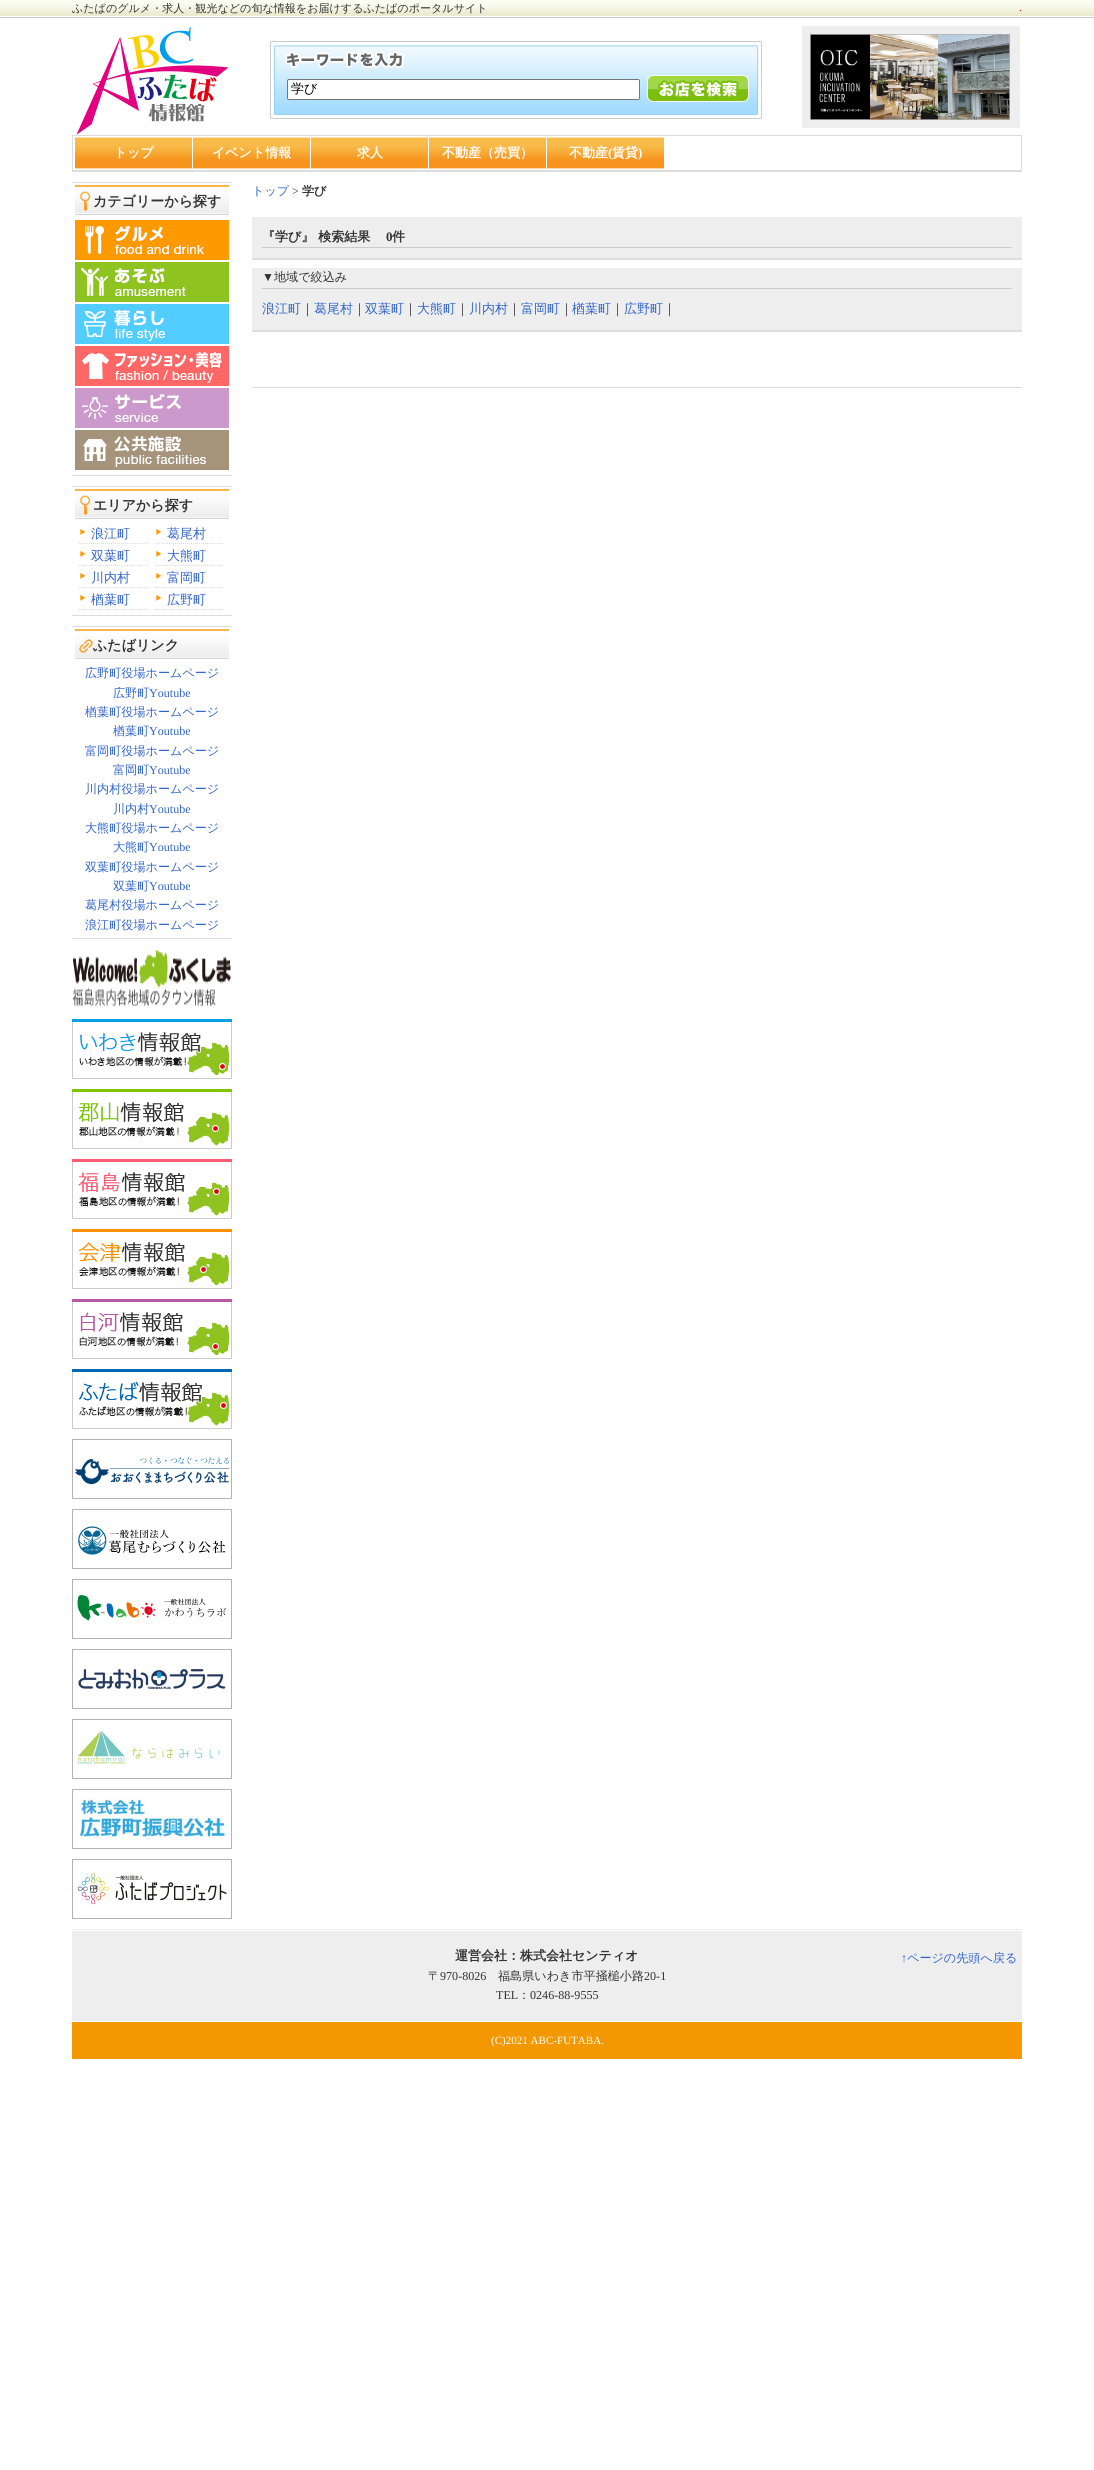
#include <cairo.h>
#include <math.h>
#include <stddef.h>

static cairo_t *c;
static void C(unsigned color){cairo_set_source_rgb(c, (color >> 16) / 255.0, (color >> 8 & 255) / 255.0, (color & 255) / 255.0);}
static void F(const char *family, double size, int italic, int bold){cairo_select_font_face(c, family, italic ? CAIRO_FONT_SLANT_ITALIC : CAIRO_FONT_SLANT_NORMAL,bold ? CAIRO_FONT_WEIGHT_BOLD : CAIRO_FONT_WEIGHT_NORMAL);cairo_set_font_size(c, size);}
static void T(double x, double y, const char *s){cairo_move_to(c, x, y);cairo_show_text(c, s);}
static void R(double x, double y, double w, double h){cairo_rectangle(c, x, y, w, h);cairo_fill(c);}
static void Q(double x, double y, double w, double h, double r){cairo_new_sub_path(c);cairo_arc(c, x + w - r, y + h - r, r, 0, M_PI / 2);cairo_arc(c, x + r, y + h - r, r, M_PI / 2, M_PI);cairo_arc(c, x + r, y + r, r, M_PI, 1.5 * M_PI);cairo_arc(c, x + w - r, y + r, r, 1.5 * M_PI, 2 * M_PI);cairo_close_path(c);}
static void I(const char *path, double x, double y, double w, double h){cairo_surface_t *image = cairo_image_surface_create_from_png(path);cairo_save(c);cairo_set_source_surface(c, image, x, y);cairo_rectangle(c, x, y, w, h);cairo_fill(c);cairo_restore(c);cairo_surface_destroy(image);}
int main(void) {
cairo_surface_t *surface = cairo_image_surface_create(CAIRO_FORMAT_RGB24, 1094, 2470);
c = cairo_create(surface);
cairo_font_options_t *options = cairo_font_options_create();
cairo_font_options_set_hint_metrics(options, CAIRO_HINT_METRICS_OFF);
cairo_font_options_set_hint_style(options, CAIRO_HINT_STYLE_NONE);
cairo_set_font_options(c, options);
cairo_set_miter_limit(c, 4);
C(0xffffff);
cairo_paint(c);
I("1.png",0,0,1094,18);
F("WenQuanYi Zen Hei Medium",11.05,0,0);
C(0x333333);
T(72,12,"ふたばのグルメ・求人・観光などの旬な情報をお届けするふたばのポータルサイト");
F("Liberation Serif",11.05,0,0);
C(0xcc0000);
T(1019,11,".");
I("2.png",76,27,153,108);
I("3.png",270,41,492,78);
C(0xffffff);
Q(287.5,79.5,352,20,1.5);
cairo_fill_preserve(c);
C(0x767676);
cairo_set_line_width(c,1);
cairo_stroke(c);
F("WenQuanYi Zen Hei Medium",13,0,0);
C(0x000000);
T(291,93,"学び");
I("4.png",647,75,102,27);
C(0xeeeeee);
R(802,26,218,102);
I("5.png",810,34,200,86);
C(0xdddddd);
R(72,135,950,1);
R(1021,135,1,37);
R(72,170,950,2);
R(72,135,1,37);
I("6.png",75,137,117,32);
F("WenQuanYi Zen Hei",13,0,1);
C(0xffffff);
T(114,157,"トップ");
I("6.png",193,137,117,32);
T(212,157,"イベント情報");
I("6.png",311,137,117,32);
T(357,157,"求人");
I("6.png",429,137,117,32);
T(442,157,"不動産（売買）");
I("6.png",547,137,117,32);
T(569,157,"不動産");
F("Liberation Serif",13,0,1);
T(608,157,"(");
F("WenQuanYi Zen Hei",13,0,1);
T(612,157,"賃貸");
F("Liberation Serif",13,0,1);
T(638,157,")");
C(0xdddddd);
R(72,182,160,1);
R(72,475,160,1);
I("7.png",75,185,154,30);
F("WenQuanYi Zen Hei",14,0,1);
C(0x333333);
T(93,206,"カテゴリーから探す");
I("8.png",75,220,154,40);
I("9.png",75,262,154,40);
I("10.png",75,304,154,40);
I("11.png",75,346,154,40);
I("12.png",75,388,154,40);
I("13.png",75,430,154,40);
C(0xdddddd);
R(72,486,160,1);
R(72,615,160,1);
I("7.png",75,489,154,30);
C(0x333333);
T(93,510,"エリアから探す");
I("14.png",80,529,6,6);
cairo_new_path(c);
cairo_move_to(c,79,543.5);
cairo_line_to(c,148,543.5);
C(0xdddddd);
cairo_set_dash(c,(double[]){1,1},2,0);
cairo_stroke(c);
F("WenQuanYi Zen Hei Medium",13,0,0);
C(0x3366cc);
T(91,538,"浪江町");
I("14.png",156,529,6,6);
cairo_new_path(c);
cairo_move_to(c,155,543.5);
cairo_line_to(c,224,543.5);
C(0xdddddd);
cairo_stroke(c);
C(0x3366cc);
T(167,538,"葛尾村");
I("14.png",80,551,6,6);
cairo_new_path(c);
cairo_move_to(c,79,565.5);
cairo_line_to(c,148,565.5);
C(0xdddddd);
cairo_stroke(c);
C(0x3366cc);
T(91,560,"双葉町");
I("14.png",156,551,6,6);
cairo_new_path(c);
cairo_move_to(c,155,565.5);
cairo_line_to(c,224,565.5);
C(0xdddddd);
cairo_stroke(c);
C(0x3366cc);
T(167,560,"大熊町");
I("14.png",80,573,6,6);
cairo_new_path(c);
cairo_move_to(c,79,587.5);
cairo_line_to(c,148,587.5);
C(0xdddddd);
cairo_stroke(c);
C(0x3366cc);
T(91,582,"川内村");
I("14.png",156,573,6,6);
cairo_new_path(c);
cairo_move_to(c,155,587.5);
cairo_line_to(c,224,587.5);
C(0xdddddd);
cairo_stroke(c);
C(0x3366cc);
T(167,582,"富岡町");
I("14.png",80,595,6,6);
cairo_new_path(c);
cairo_move_to(c,79,609.5);
cairo_line_to(c,148,609.5);
C(0xdddddd);
cairo_stroke(c);
C(0x3366cc);
T(91,604,"楢葉町");
I("14.png",156,595,6,6);
cairo_new_path(c);
cairo_move_to(c,155,609.5);
cairo_line_to(c,224,609.5);
C(0xdddddd);
cairo_stroke(c);
C(0x3366cc);
T(167,604,"広野町");
C(0xdddddd);
R(72,626,160,1);
R(72,938,160,1);
I("15.png",75,629,154,30);
F("WenQuanYi Zen Hei",14,0,1);
C(0x333333);
T(93,650,"ふたばリンク");
F("WenQuanYi Zen Hei Medium",12.1,0,0);
C(0x3366cc);
T(85,677,"広野町役場ホームページ");
T(113,697,"広野町");
F("Liberation Serif",12.1,0,0);
T(149,697,"Youtube");
F("WenQuanYi Zen Hei Medium",12.1,0,0);
T(85,716,"楢葉町役場ホームページ");
T(113,735,"楢葉町");
F("Liberation Serif",12.1,0,0);
T(149,735,"Youtube");
F("WenQuanYi Zen Hei Medium",12.1,0,0);
T(85,755,"富岡町役場ホームページ");
T(113,774,"富岡町");
F("Liberation Serif",12.1,0,0);
T(149,774,"Youtube");
F("WenQuanYi Zen Hei Medium",12.1,0,0);
T(85,793,"川内村役場ホームページ");
T(113,813,"川内村");
F("Liberation Serif",12.1,0,0);
T(149,813,"Youtube");
F("WenQuanYi Zen Hei Medium",12.1,0,0);
T(85,832,"大熊町役場ホームページ");
T(113,851,"大熊町");
F("Liberation Serif",12.1,0,0);
T(149,851,"Youtube");
F("WenQuanYi Zen Hei Medium",12.1,0,0);
T(85,871,"双葉町役場ホームページ");
T(113,890,"双葉町");
F("Liberation Serif",12.1,0,0);
T(149,890,"Youtube");
F("WenQuanYi Zen Hei Medium",12.1,0,0);
T(85,909,"葛尾村役場ホームページ");
T(85,929,"浪江町役場ホームページ");
I("16.png",72,950,159,57);
I("17.png",72,1019,160,60);
I("18.png",72,1089,160,60);
I("19.png",72,1159,160,60);
I("20.png",72,1229,160,60);
I("21.png",72,1299,160,60);
I("22.png",72,1369,160,60);
I("23.png",72,1439,160,60);
I("24.png",72,1509,160,60);
I("25.png",72,1579,160,60);
I("26.png",72,1649,160,60);
I("27.png",72,1719,160,60);
I("28.png",72,1789,160,60);
I("29.png",72,1859,160,60);
T(252,195,"トップ");
F("Liberation Serif",12.1,0,0);
C(0x333333);
T(292,195,">");
F("WenQuanYi Zen Hei",12.1,0,1);
T(302,195,"学び");
C(0xeeeeee);
R(252,217,770,113);
C(0xdddddd);
R(252,330,770,2);
F("WenQuanYi Zen Hei",13,0,1);
C(0x333333);
T(262,241,"『学び』 検索結果");
F("Liberation Serif",13,0,1);
T(386,241,"0");
F("WenQuanYi Zen Hei",13,0,1);
T(392,241,"件");
C(0xcccccc);
R(262,247,750,1);
C(0xffffff);
R(252,260,770,8);
C(0xdddddd);
R(252,258,770,2);
F("Liberation Serif",12.1,0,0);
C(0x333333);
T(262,281,"▼");
F("WenQuanYi Zen Hei Medium",12.1,0,0);
T(274,281,"地域で絞込み");
C(0xcccccc);
R(262,288,750,1);
F("WenQuanYi Zen Hei Medium",13,0,0);
C(0x3366cc);
T(262,313,"浪江町");
C(0x333333);
T(301,313,"｜");
C(0x3366cc);
T(314,313,"葛尾村");
C(0x333333);
T(353,313,"｜");
C(0x3366cc);
T(365,313,"双葉町");
C(0x333333);
T(404,313,"｜");
C(0x3366cc);
T(417,313,"大熊町");
C(0x333333);
T(456,313,"｜");
C(0x3366cc);
T(469,313,"川内村");
C(0x333333);
T(508,313,"｜");
C(0x3366cc);
T(521,313,"富岡町");
C(0x333333);
T(560,313,"｜");
C(0x3366cc);
T(572,313,"楢葉町");
C(0x333333);
T(611,313,"｜");
C(0x3366cc);
T(624,313,"広野町");
C(0x333333);
T(663,313,"｜");
C(0xdddddd);
R(252,387,770,1);
C(0xeeeeee);
R(72,1931,950,90);
F("Liberation Serif",12.1,0,0);
C(0x3366cc);
T(901,1962,"↑");
F("WenQuanYi Zen Hei Medium",12.1,0,0);
T(907,1962,"ページの先頭へ戻る");
C(0xeeeeee);
R(72,1929,950,1);
F("WenQuanYi Zen Hei",13,0,1);
C(0x333333);
T(455,1960,"運営会社：株式会社センティオ");
F("WenQuanYi Zen Hei Medium",12.1,0,0);
T(428,1980,"〒");
F("Liberation Serif",12.1,0,0);
T(440,1980,"970-8026");
F("WenQuanYi Zen Hei Medium",12.1,0,0);
T(498,1980,"福島県いわき市平掻槌小路");
F("Liberation Serif",12.1,0,0);
T(644,1980,"20-1");
T(496,1999,"TEL");
F("WenQuanYi Zen Hei Medium",12.1,0,0);
T(518,1999,"：");
F("Liberation Serif",12.1,0,0);
T(530,1999,"0246-88-9555");
C(0xf39800);
R(72,2022,950,37);
F("Liberation Serif",11.05,0,0);
C(0xffffff);
T(491,2044,"(C)2021 ABC-FUTABA.");
cairo_surface_write_to_png(surface, "o.png");
cairo_font_options_destroy(options);
cairo_destroy(c);
cairo_surface_destroy(surface);
return 0;
}
